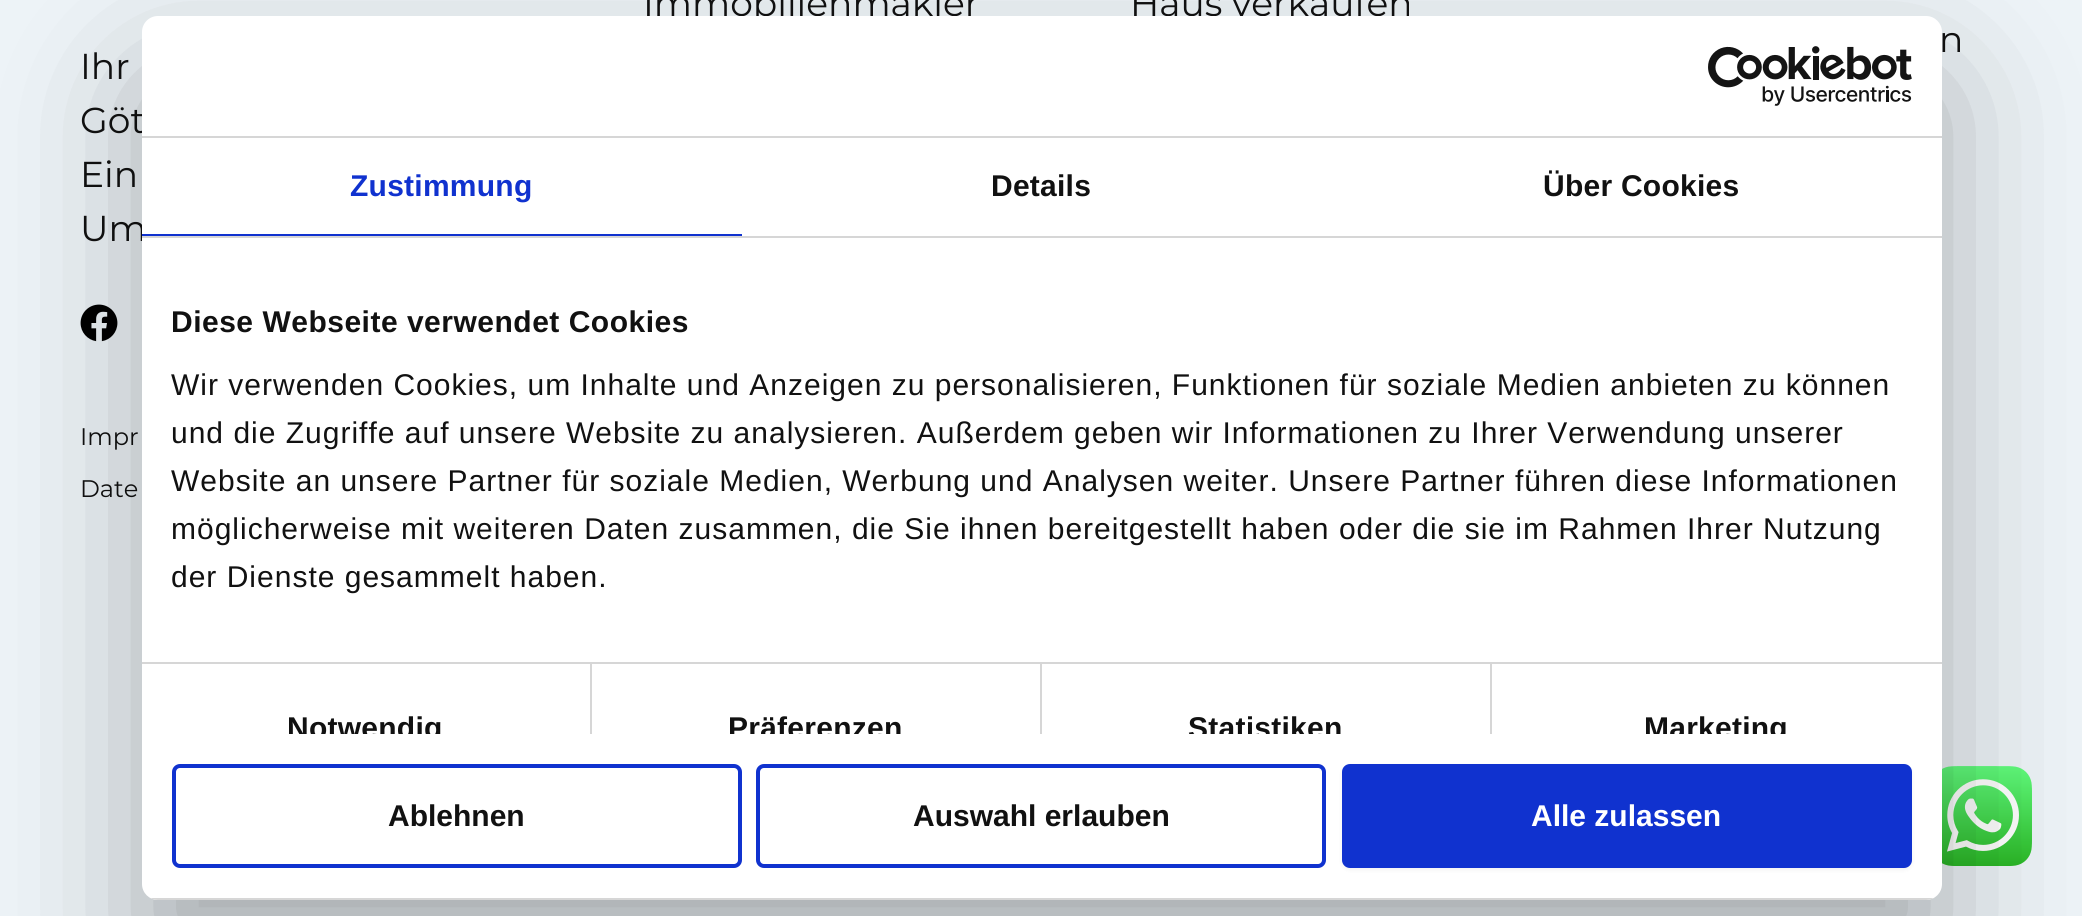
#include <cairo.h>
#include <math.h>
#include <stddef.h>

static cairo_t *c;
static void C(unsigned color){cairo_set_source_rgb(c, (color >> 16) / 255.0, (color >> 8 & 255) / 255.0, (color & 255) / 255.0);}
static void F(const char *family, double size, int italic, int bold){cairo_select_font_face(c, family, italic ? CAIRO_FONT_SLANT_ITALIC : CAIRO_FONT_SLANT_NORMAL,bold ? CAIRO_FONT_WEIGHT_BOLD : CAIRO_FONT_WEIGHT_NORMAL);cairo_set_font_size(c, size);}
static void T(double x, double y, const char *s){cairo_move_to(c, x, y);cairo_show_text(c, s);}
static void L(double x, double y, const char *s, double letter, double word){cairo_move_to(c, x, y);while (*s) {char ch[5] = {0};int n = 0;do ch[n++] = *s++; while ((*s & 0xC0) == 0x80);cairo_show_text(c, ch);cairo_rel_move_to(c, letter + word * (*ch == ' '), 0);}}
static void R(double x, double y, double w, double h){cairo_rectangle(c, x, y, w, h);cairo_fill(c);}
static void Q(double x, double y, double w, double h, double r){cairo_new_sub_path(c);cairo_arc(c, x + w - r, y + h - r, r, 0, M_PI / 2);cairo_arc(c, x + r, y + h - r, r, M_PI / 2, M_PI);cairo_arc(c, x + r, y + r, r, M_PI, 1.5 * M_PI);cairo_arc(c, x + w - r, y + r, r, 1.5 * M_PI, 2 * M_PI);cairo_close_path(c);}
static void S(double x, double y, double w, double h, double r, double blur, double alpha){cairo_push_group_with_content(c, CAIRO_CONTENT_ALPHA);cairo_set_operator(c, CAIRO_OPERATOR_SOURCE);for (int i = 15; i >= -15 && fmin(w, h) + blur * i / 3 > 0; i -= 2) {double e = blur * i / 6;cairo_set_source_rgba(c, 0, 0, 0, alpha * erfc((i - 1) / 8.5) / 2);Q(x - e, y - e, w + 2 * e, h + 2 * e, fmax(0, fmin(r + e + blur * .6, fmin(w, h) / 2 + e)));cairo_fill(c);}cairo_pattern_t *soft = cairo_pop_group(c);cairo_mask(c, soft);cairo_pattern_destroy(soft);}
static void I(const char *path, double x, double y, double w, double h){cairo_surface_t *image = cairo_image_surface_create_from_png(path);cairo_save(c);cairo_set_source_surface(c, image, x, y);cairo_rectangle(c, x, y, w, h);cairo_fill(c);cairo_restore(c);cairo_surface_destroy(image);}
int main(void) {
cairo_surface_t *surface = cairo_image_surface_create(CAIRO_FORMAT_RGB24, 2082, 916);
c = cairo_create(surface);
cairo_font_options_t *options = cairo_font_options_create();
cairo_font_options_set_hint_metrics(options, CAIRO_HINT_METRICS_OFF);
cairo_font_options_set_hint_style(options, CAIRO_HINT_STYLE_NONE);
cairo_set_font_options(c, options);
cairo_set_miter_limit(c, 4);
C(0xedf3f7);
cairo_paint(c);
F("Montserrat",36,0,0);
C(0x111111);
T(643,16,"Immobilienmakler");
T(1130,16,"Haus verkaufen");
T(1939,52,"n");
T(80,79,"Ihr");
T(80,133,"Göt");
T(80,187,"Ein");
T(80,241,"Um");
I("1.png",80,304,38,38);
F("Montserrat",24,0,0);
T(80,445,"Impr");
T(80,497,"Date");
I("3.png",1942,766,90,100);
C(0x000000);
S(142,80,1800,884,16,68,.3);
C(0xffffff);
Q(142,16,1800,884,16);
cairo_fill(c);
C(0xd6d6d6);
R(142,136,1800,2);
I("2.png",1708,46,204,60);
R(142,236,1800,2);
C(0x1032cf);
R(142,234,600,2);
F("Liberation Sans",30,0,1);
L(350,196,"Zustimmung",.25,0);
C(0x111111);
L(991,196,"Details",.25,0);
L(1543,196,"Über Cookies",.25,0);
C(0xd6d6d6);
R(142,662,1800,2);
C(0x111111);
L(171,332,"Diese Webseite verwendet Cookies",.5,0);
F("Liberation Sans",30,0,0);
L(171,395,"Wir verwenden Cookies, um Inhalte und Anzeigen zu personalisieren, Funktionen für soziale Medien anbieten zu können",1,0);
L(171,443,"und die Zugriffe auf unsere Website zu analysieren. Außerdem geben wir Informationen zu Ihrer Verwendung unserer",1,0);
L(171,491,"Website an unsere Partner für soziale Medien, Werbung und Analysen weiter. Unsere Partner führen diese Informationen",1,0);
L(171,539,"möglicherweise mit weiteren Daten zusammen, die Sie ihnen bereitgestellt haben oder die sie im Rahmen Ihrer Nutzung",1,0);
L(171,587,"der Dienste gesammelt haben.",1,0);
C(0xd6d6d6);
R(590,664,2,70);
cairo_save(c);
cairo_rectangle(c,142,238,1800,496);
cairo_clip(c);
F("Liberation Sans",30,0,1);
C(0x111111);
L(287,738,"Notwendig",.25,0);
cairo_restore(c);
R(1040,664,2,70);
cairo_save(c);
cairo_rectangle(c,142,238,1800,496);
cairo_clip(c);
F("Liberation Sans",30,0,1);
C(0x111111);
L(728,738,"Präferenzen",.25,0);
cairo_restore(c);
R(1490,664,2,70);
cairo_save(c);
cairo_rectangle(c,142,238,1800,496);
cairo_clip(c);
F("Liberation Sans",30,0,1);
C(0x111111);
L(1188,738,"Statistiken",.25,0);
L(1644,738,"Marketing",.25,0);
cairo_restore(c);
cairo_save(c);
Q(142,16,1800,884,16);
cairo_clip(c);
R(142,898,1800,2);
cairo_restore(c);
Q(174,766,566,100,6);
C(0x1032cf);
cairo_set_line_width(c,4);
cairo_stroke(c);
F("Liberation Sans",30,0,1);
C(0x111111);
T(388,826,"Ablehnen");
Q(758,766,566,100,6);
C(0x1032cf);
cairo_stroke(c);
C(0x111111);
T(913,826,"Auswahl erlauben");
C(0x000000);
S(1342,766,570,104,8,2,.05);
C(0x1032cf);
Q(1344,766,566,100,6);
cairo_fill_preserve(c);
cairo_stroke(c);
C(0xffffff);
T(1531,826,"Alle zulassen");
cairo_surface_write_to_png(surface, "o.png");
cairo_font_options_destroy(options);
cairo_destroy(c);
cairo_surface_destroy(surface);
return 0;
}
